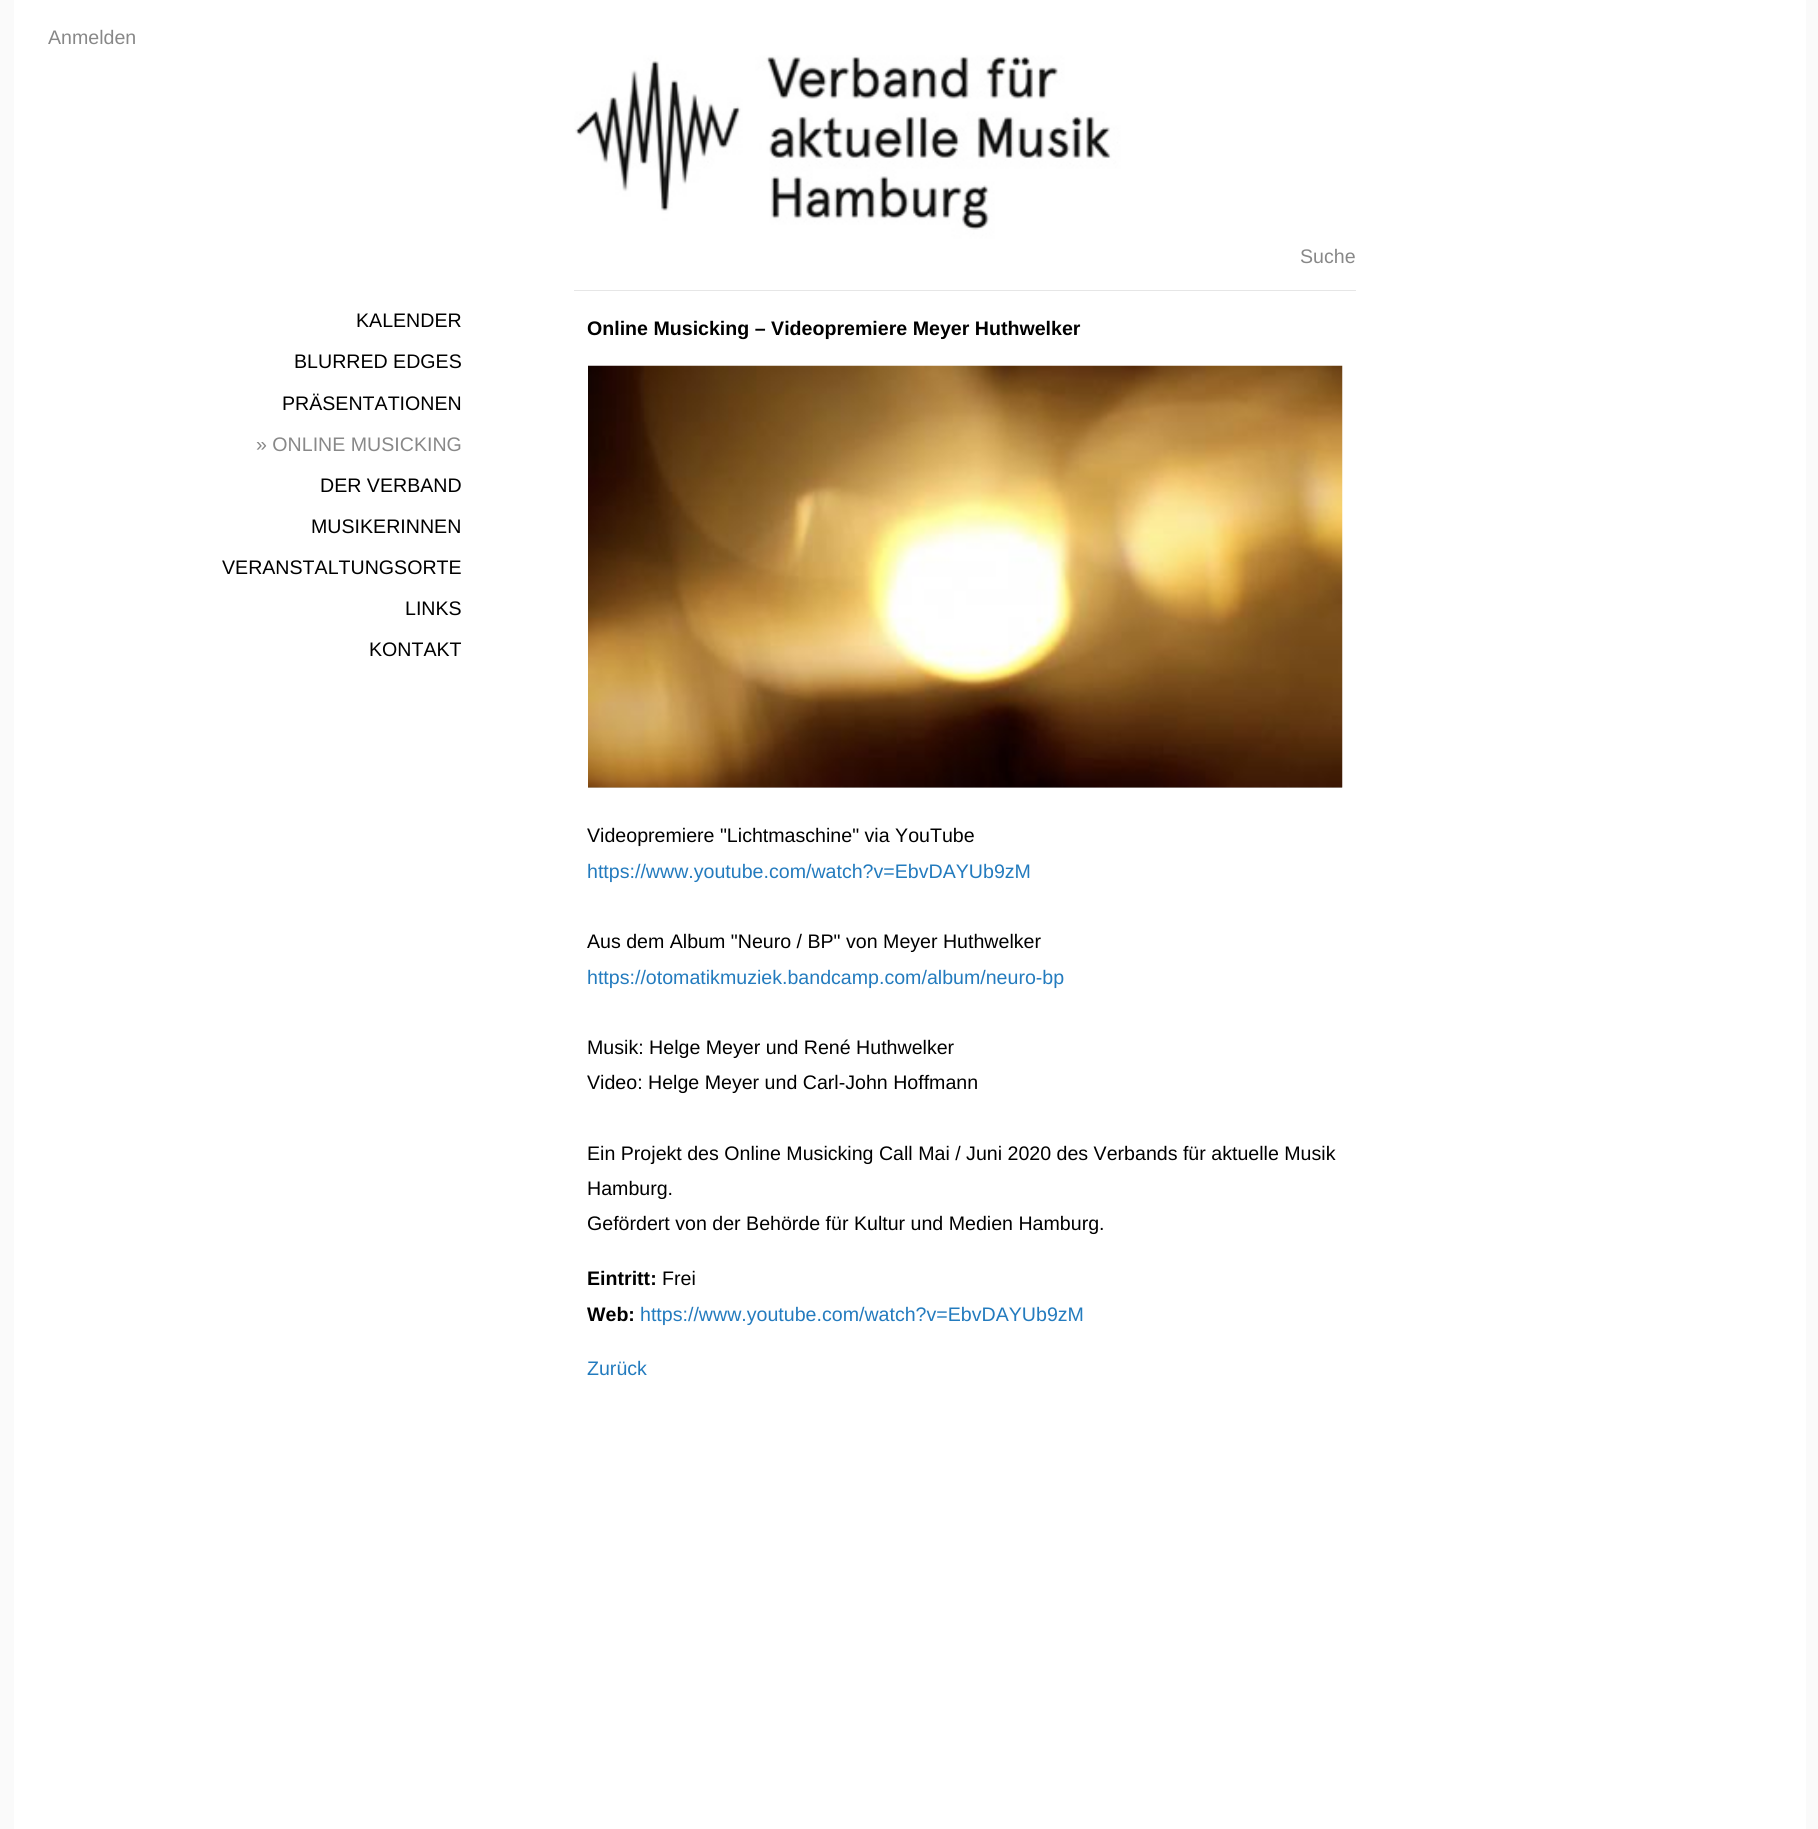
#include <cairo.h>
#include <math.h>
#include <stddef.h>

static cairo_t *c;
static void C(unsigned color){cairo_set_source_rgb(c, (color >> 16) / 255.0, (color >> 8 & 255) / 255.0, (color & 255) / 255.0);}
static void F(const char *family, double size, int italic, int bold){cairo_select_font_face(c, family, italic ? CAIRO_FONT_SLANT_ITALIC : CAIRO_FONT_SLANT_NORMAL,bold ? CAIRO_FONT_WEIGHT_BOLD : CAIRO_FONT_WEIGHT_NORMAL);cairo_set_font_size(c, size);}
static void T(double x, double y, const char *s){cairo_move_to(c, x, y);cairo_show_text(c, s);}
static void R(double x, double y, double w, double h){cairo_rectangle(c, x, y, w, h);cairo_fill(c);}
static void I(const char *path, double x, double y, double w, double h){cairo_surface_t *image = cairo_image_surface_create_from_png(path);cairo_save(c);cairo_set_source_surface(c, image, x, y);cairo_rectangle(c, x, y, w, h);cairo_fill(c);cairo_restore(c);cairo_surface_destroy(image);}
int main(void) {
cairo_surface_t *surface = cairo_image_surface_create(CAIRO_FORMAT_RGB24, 1818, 1829);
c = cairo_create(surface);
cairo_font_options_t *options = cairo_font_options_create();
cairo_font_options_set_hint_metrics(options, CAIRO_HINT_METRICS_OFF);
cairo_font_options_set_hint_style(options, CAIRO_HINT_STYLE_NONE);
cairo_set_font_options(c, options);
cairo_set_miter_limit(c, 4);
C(0xfafafa);
cairo_paint(c);
C(0xffffff);
R(14,0,1792,1829);
F("Liberation Sans",19.6,0,0);
C(0x888888);
T(48,44,"Anmelden");
C(0x000000);
T(356,327,"KALENDER");
T(294,368,"BLURRED EDGES");
T(282,410,"PRÄSENTATIONEN");
C(0x888888);
T(256,451,"» ONLINE MUSICKING");
C(0x000000);
T(320,492,"DER VERBAND");
T(311,533,"MUSIKERINNEN");
T(222,574,"VERANSTALTUNGSORTE");
T(405,615,"LINKS");
T(369,656,"KONTAKT");
C(0xcccccc);
R(574,290,782,1);
I("1.png",574,0,782,291);
C(0x888888);
T(1300,263,"Suche");
F("Liberation Sans",19.6,0,1);
C(0x000000);
T(587,335,"Online Musicking – Videopremiere Meyer Huthwelker");
C(0xcccccc);
R(588,787,754,1);
I("2.png",588,365,755,423);
F("Liberation Sans",19.6,0,0);
C(0x000000);
T(587,842,"Videopremiere \"Lichtmaschine\" via YouTube");
C(0x237bbe);
T(587,878,"https://www.youtube.com/watch?v=EbvDAYUb9zM");
C(0x000000);
T(587,948,"Aus dem Album \"Neuro / BP\" von Meyer Huthwelker");
C(0x237bbe);
T(587,984,"https://otomatikmuziek.bandcamp.com/album/neuro-bp");
C(0x000000);
T(587,1054,"Musik: Helge Meyer und René Huthwelker");
T(587,1089,"Video: Helge Meyer und Carl-John Hoffmann");
T(587,1160,"Ein Projekt des Online Musicking Call Mai / Juni 2020 des Verbands für aktuelle Musik");
T(587,1195,"Hamburg.");
T(587,1230,"Gefördert von der Behörde für Kultur und Medien Hamburg.");
F("Liberation Sans",19.6,0,1);
T(587,1285,"Eintritt:");
F("Liberation Sans",19.6,0,0);
T(662,1285,"Frei");
F("Liberation Sans",19.6,0,1);
T(587,1321,"Web:");
F("Liberation Sans",19.6,0,0);
C(0x237bbe);
T(640,1321,"https://www.youtube.com/watch?v=EbvDAYUb9zM");
T(587,1375,"Zurück");
cairo_surface_write_to_png(surface, "o.png");
cairo_font_options_destroy(options);
cairo_destroy(c);
cairo_surface_destroy(surface);
return 0;
}
